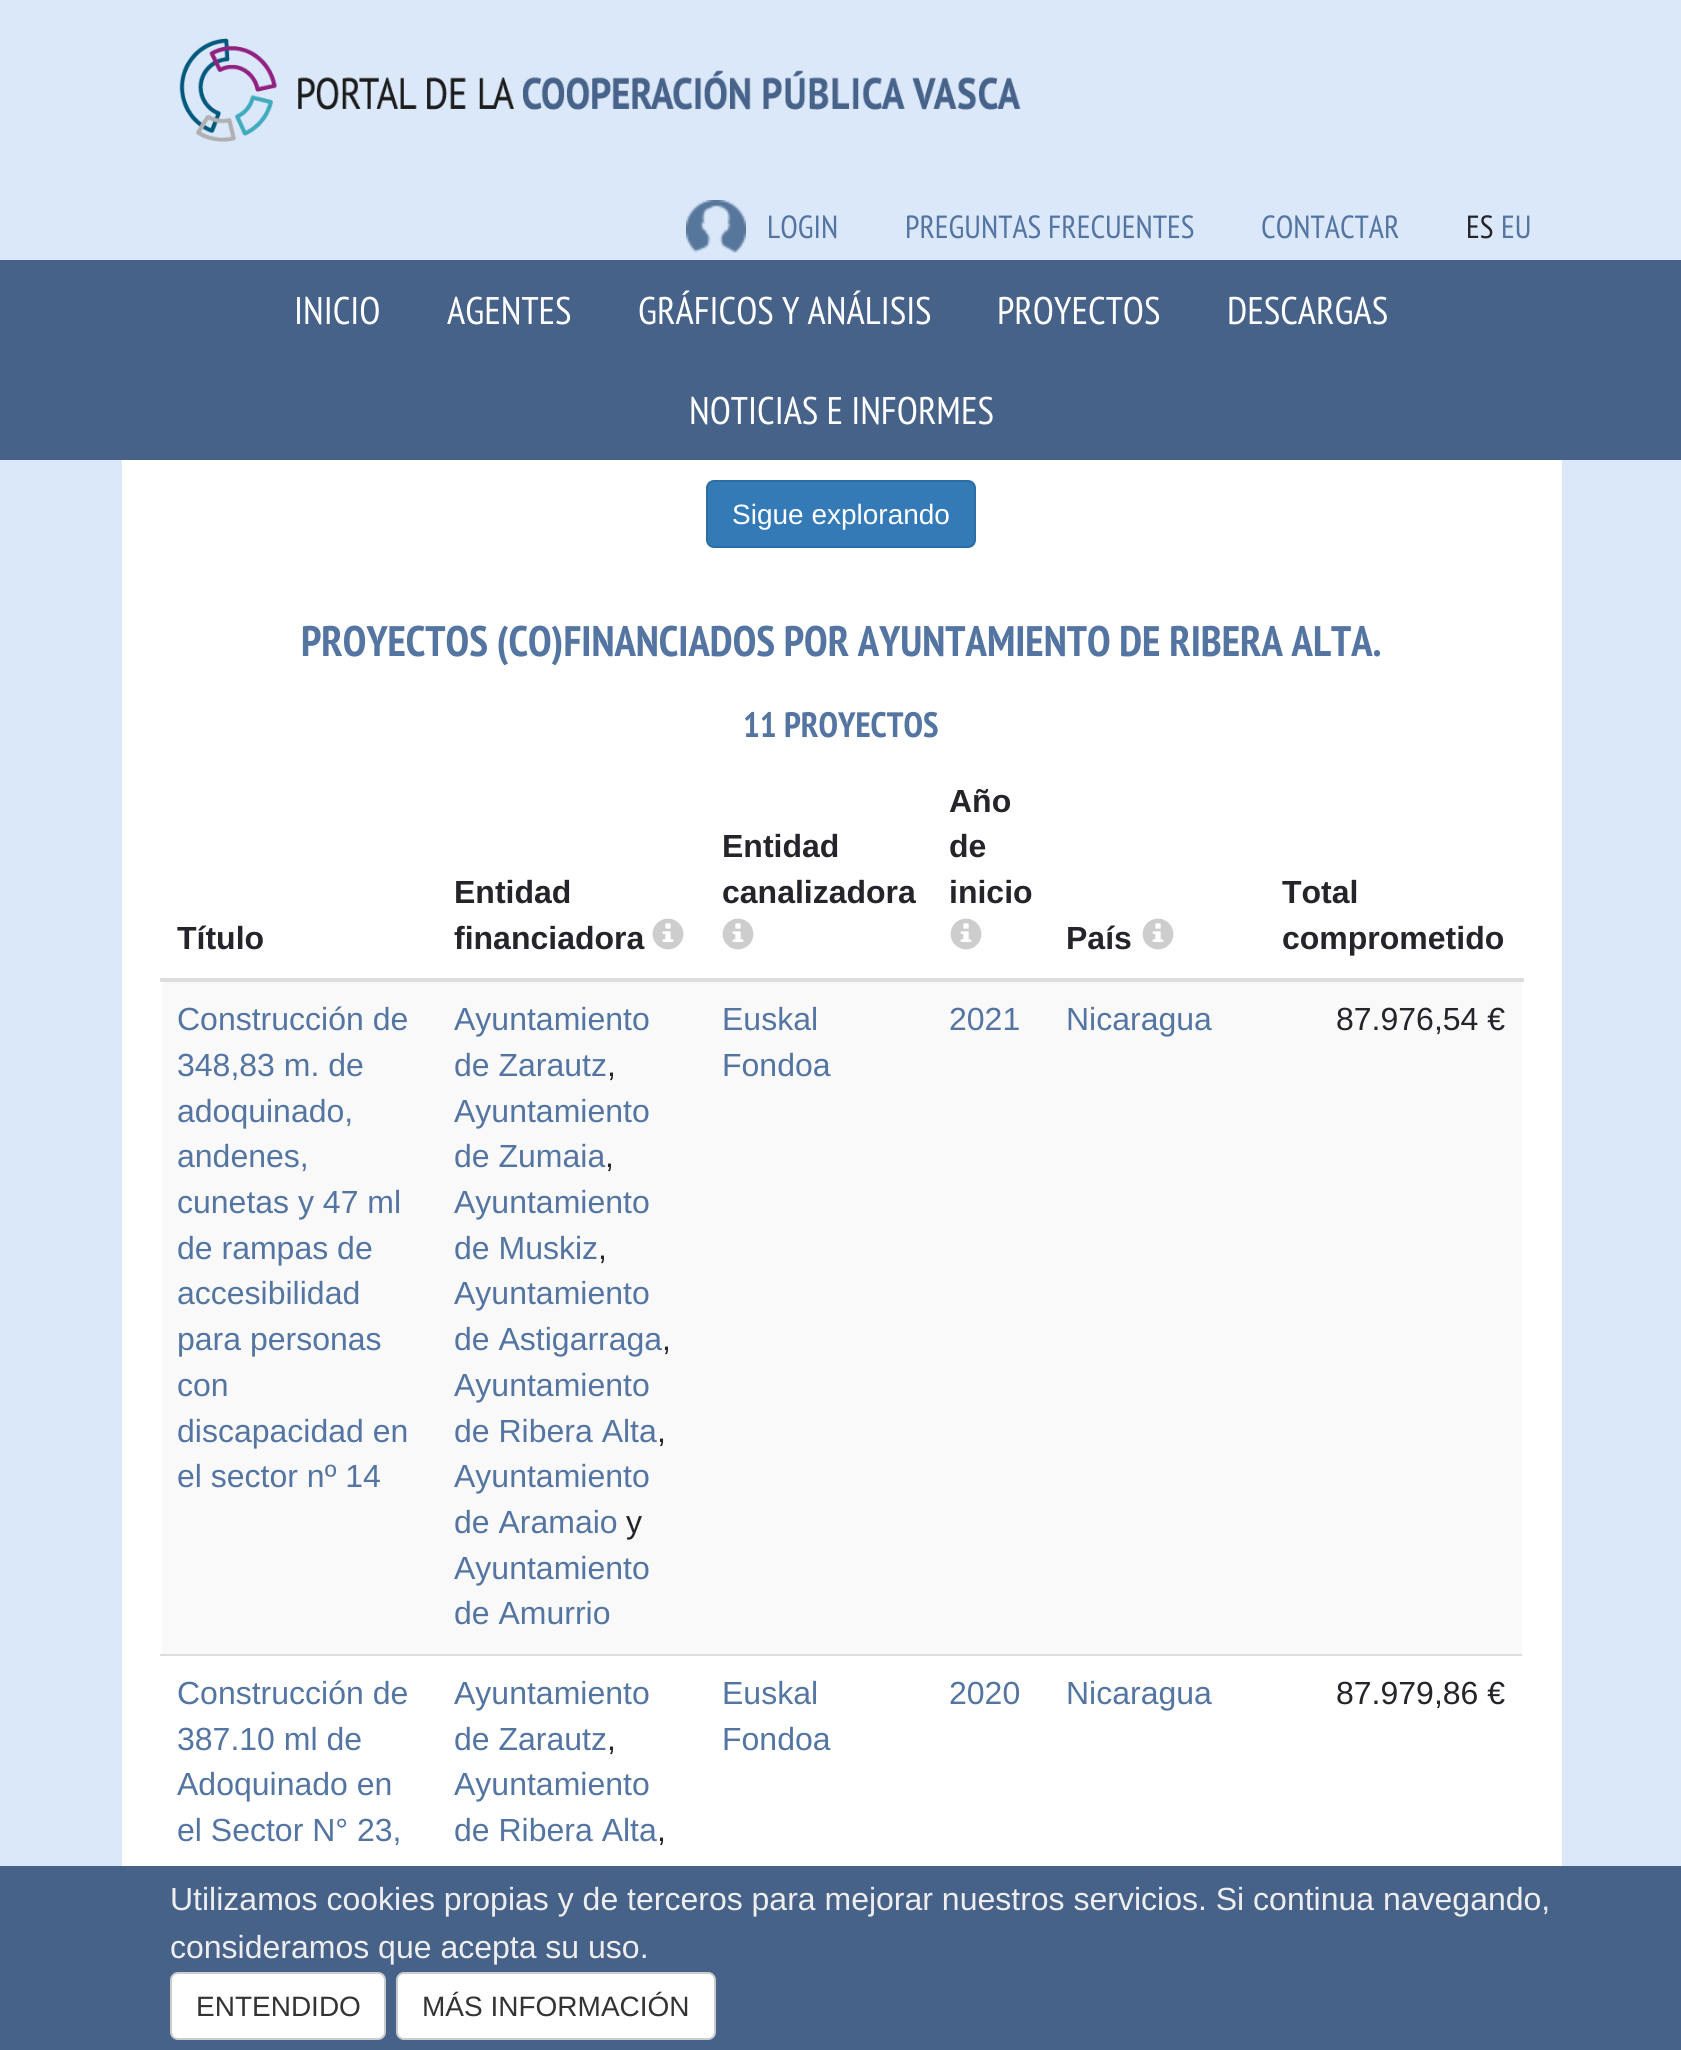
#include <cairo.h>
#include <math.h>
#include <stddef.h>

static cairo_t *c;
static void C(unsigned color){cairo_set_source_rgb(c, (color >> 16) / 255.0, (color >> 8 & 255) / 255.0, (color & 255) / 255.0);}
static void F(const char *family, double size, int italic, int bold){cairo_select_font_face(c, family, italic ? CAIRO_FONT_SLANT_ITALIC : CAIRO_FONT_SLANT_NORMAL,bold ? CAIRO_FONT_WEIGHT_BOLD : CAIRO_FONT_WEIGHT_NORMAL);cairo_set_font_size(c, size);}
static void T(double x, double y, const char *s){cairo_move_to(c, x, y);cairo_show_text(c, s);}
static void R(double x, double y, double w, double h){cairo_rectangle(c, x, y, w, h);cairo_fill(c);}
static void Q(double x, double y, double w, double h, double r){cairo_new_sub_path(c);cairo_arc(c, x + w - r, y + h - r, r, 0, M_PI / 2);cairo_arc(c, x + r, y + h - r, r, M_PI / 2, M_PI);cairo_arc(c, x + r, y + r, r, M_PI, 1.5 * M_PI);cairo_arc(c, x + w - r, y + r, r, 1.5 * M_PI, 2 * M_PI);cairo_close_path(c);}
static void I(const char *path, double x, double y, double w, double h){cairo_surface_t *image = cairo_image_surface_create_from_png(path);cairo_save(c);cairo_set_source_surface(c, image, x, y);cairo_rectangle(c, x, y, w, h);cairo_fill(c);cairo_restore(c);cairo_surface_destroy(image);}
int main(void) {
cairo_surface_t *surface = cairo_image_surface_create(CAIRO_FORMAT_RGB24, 1681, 2050);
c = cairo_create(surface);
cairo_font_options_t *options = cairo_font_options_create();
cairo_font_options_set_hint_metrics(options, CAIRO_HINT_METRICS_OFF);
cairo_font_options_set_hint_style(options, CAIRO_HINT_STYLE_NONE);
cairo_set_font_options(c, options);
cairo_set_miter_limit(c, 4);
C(0xdbe8f9);
cairo_paint(c);
I("1.png",179,38,842,104);
I("2.png",686,200,60,53);
F("PT Sans Narrow",32,0,0);
C(0x5475a2);
T(767,238,"LOGIN");
T(905,238,"PREGUNTAS FRECUENTES");
T(1261,238,"CONTACTAR");
C(0x24242a);
T(1466,238,"ES");
C(0x5475a2);
T(1501,238,"EU");
C(0x466289);
R(0,260,1681,200);
F("PT Sans Narrow",38.5,0,0);
C(0xffffff);
T(294,324,"INICIO");
T(447,324,"AGENTES");
T(638,324,"GRÁFICOS Y ANÁLISIS");
T(997,324,"PROYECTOS");
T(1227,324,"DESCARGAS");
T(689,424,"NOTICIAS E INFORMES");
R(122,460,1440,1406);
C(0x337ab7);
Q(707,481,268,66,7);
cairo_fill_preserve(c);
C(0x2e6da4);
cairo_stroke(c);
F("Liberation Sans",28,0,0);
C(0xffffff);
T(732,524,"Sigue explorando");
F("PT Sans Narrow",42.65,0,1);
C(0x5475a2);
T(301,656,"PROYECTOS (CO)FINANCIADOS POR AYUNTAMIENTO DE RIBERA ALTA.");
F("PT Sans Narrow",35.25,0,1);
T(743,737,"11 PROYECTOS");
F("Liberation Sans",32,0,1);
C(0x24242a);
T(722,857,"Entidad");
T(722,903,"canalizadora");
I("3.png",722,918,32,32);
T(949,812,"Año");
T(949,857,"de");
T(949,903,"inicio");
I("3.png",950,918,32,32);
T(177,949,"Título");
T(454,903,"Entidad");
T(454,949,"financiadora");
I("3.png",652,918,32,32);
T(1066,949,"País");
I("3.png",1142,918,32,32);
C(0xdddddd);
R(160,978,1364,4);
C(0x24242a);
T(1282,903,"Total");
T(1282,949,"comprometido");
C(0xf9f9f9);
R(162,982,1360,672);
F("Liberation Sans",32,0,0);
C(0x5475a2);
T(177,1030,"Construcción de");
T(177,1076,"348,83 m. de");
T(177,1122,"adoquinado,");
T(177,1167,"andenes,");
T(177,1213,"cunetas y 47 ml");
T(177,1259,"de rampas de");
T(177,1304,"accesibilidad");
T(177,1350,"para personas");
T(177,1396,"con");
T(177,1442,"discapacidad en");
T(177,1487,"el sector nº 14");
T(454,1030,"Ayuntamiento");
T(454,1076,"de Zarautz");
C(0x24242a);
T(607,1076,",");
C(0x5475a2);
T(454,1122,"Ayuntamiento");
T(454,1167,"de Zumaia");
C(0x24242a);
T(605,1167,",");
C(0x5475a2);
T(454,1213,"Ayuntamiento");
T(454,1259,"de Muskiz");
C(0x24242a);
T(598,1259,",");
C(0x5475a2);
T(454,1304,"Ayuntamiento");
T(454,1350,"de Astigarraga");
C(0x24242a);
T(662,1350,",");
C(0x5475a2);
T(454,1396,"Ayuntamiento");
T(454,1442,"de Ribera Alta");
C(0x24242a);
T(657,1442,",");
C(0x5475a2);
T(454,1487,"Ayuntamiento");
T(454,1533,"de Aramaio");
C(0x24242a);
T(626,1533,"y");
C(0x5475a2);
T(454,1579,"Ayuntamiento");
T(454,1624,"de Amurrio");
T(722,1030,"Euskal");
T(722,1076,"Fondoa");
T(949,1030,"2021");
T(1066,1030,"Nicaragua");
C(0x24242a);
T(1336,1030,"87.976,54 €");
C(0x5475a2);
T(177,1704,"Construcción de");
T(177,1750,"387.10 ml de");
T(177,1795,"Adoquinado en");
T(177,1841,"el Sector N° 23,");
T(454,1704,"Ayuntamiento");
T(454,1750,"de Zarautz");
C(0x24242a);
T(607,1750,",");
C(0x5475a2);
T(454,1795,"Ayuntamiento");
T(454,1841,"de Ribera Alta");
C(0x24242a);
T(657,1841,",");
C(0x5475a2);
T(722,1704,"Euskal");
T(722,1750,"Fondoa");
T(949,1704,"2020");
T(1066,1704,"Nicaragua");
C(0xdddddd);
R(160,1654,1362,2);
C(0x24242a);
T(1336,1704,"87.979,86 €");
C(0x466289);
R(0,1866,1681,184);
C(0xeeeeee);
T(170,1910,"Utilizamos cookies propias y de terceros para mejorar nuestros servicios. Si continua navegando,");
T(170,1958,"consideramos que acepta su uso.");
C(0xffffff);
Q(171,1973,214,66,7);
cairo_fill_preserve(c);
C(0xcccccc);
cairo_stroke(c);
F("Liberation Sans",28,0,0);
C(0x333333);
T(196,2016,"ENTENDIDO");
C(0xffffff);
Q(397,1973,318,66,7);
cairo_fill_preserve(c);
C(0xcccccc);
cairo_stroke(c);
C(0x333333);
T(422,2016,"MÁS INFORMACIÓN");
cairo_surface_write_to_png(surface, "o.png");
cairo_font_options_destroy(options);
cairo_destroy(c);
cairo_surface_destroy(surface);
return 0;
}
